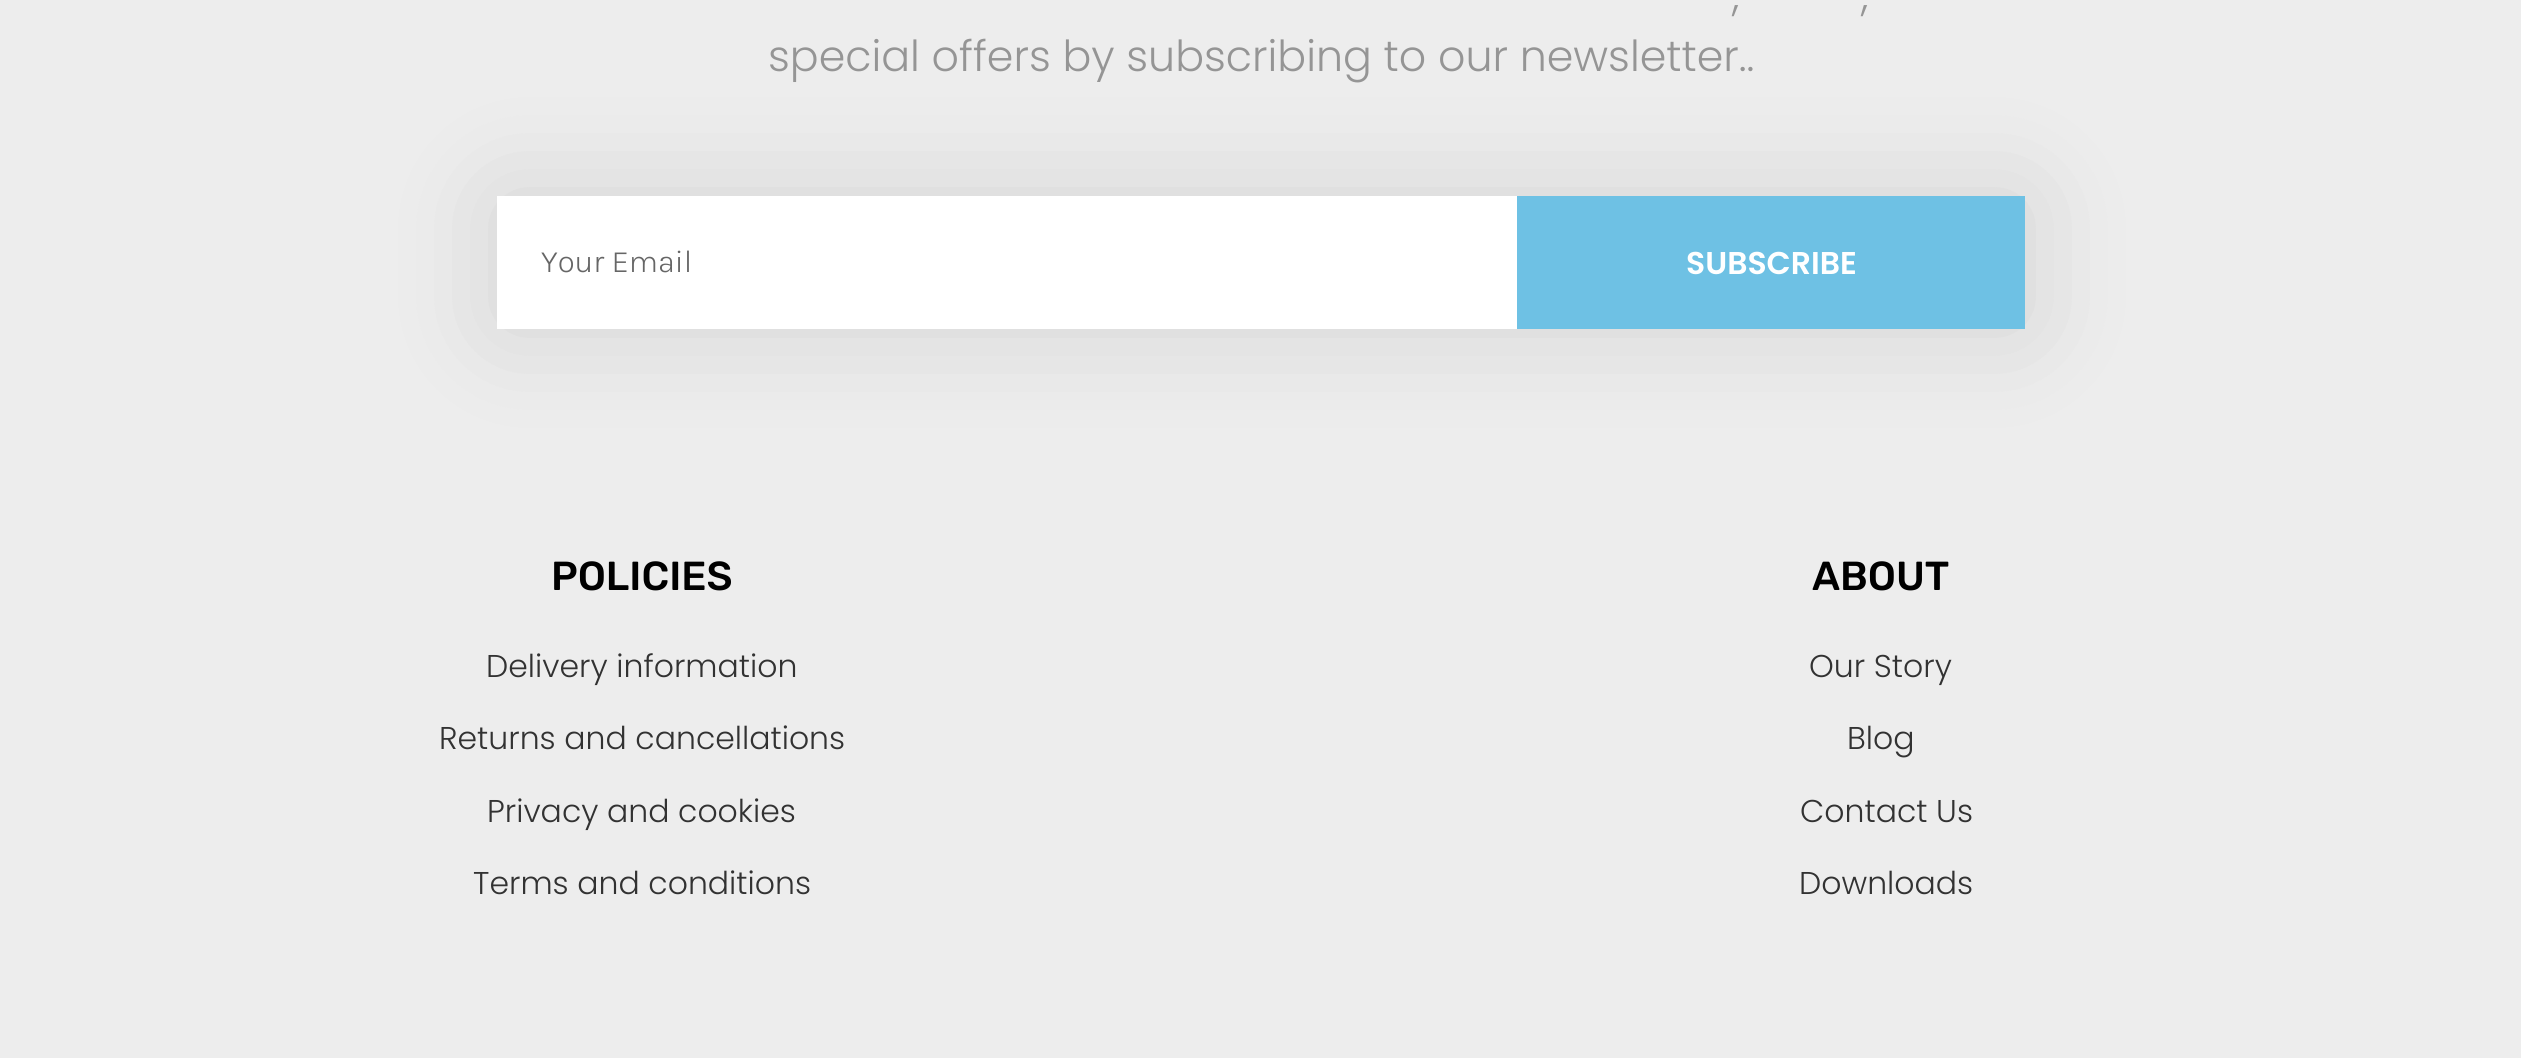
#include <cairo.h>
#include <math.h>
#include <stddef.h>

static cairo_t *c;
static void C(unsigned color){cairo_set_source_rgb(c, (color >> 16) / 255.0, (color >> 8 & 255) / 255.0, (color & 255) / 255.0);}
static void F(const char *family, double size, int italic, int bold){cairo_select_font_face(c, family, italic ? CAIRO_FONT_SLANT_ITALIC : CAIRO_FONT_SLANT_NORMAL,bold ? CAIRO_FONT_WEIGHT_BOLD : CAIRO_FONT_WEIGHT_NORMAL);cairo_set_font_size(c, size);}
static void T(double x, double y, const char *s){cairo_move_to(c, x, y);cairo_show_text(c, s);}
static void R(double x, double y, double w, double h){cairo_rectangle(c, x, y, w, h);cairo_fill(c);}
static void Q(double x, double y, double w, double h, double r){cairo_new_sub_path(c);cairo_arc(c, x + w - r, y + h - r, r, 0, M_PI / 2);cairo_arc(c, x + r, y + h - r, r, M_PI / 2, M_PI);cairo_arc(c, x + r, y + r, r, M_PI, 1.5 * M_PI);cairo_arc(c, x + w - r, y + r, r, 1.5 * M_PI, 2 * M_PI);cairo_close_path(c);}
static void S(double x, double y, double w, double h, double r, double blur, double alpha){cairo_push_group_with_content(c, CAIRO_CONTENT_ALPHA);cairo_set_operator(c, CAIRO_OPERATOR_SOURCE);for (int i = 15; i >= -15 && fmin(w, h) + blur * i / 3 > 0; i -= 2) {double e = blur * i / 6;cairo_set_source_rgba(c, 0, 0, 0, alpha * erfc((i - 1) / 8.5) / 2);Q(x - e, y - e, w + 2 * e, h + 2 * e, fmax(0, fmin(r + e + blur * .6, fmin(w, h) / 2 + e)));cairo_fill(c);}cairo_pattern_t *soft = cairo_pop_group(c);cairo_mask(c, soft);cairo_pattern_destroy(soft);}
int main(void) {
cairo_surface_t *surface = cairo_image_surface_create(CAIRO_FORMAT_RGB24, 2521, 1058);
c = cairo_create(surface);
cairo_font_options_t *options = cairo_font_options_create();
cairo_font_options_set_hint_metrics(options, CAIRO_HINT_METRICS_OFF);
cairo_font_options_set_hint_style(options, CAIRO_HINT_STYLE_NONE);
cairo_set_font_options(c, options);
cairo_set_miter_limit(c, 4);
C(0xededed);
cairo_paint(c);
F("Poppins Light",42.75,0,0);
C(0x959595);
T(1732,10,",");
T(1861,10,",");
T(768,71,"special offers by subscribing to our newsletter..");
C(0x000000);
S(497,196,1530,133,0,54,.11);
C(0xffffff);
R(497,196,1020,133);
F("Karla Light",31.5,0,0);
C(0x666666);
T(541,272,"Your Email");
C(0x6ec1e4);
R(1517,196,508,133);
F("Poppins SemiBold",31.5,0,0);
C(0xffffff);
T(1686,274,"SUBSCRIBE");
F("Rubik Medium",40.5,0,0);
C(0x000000);
T(551,590,"POLICIES");
F("Poppins Light",31.5,0,0);
C(0x323232);
T(486,677,"Delivery information");
T(439,749,"Returns and cancellations");
T(487,822,"Privacy and cookies");
T(473,894,"Terms and conditions");
F("Rubik Medium",40.5,0,0);
C(0x000000);
T(1812,590,"ABOUT");
F("Poppins Light",31.5,0,0);
C(0x323232);
T(1809,677,"Our Story");
T(1847,749,"Blog");
T(1800,822,"Contact Us");
T(1799,894,"Downloads");
cairo_surface_write_to_png(surface, "o.png");
cairo_font_options_destroy(options);
cairo_destroy(c);
cairo_surface_destroy(surface);
return 0;
}
